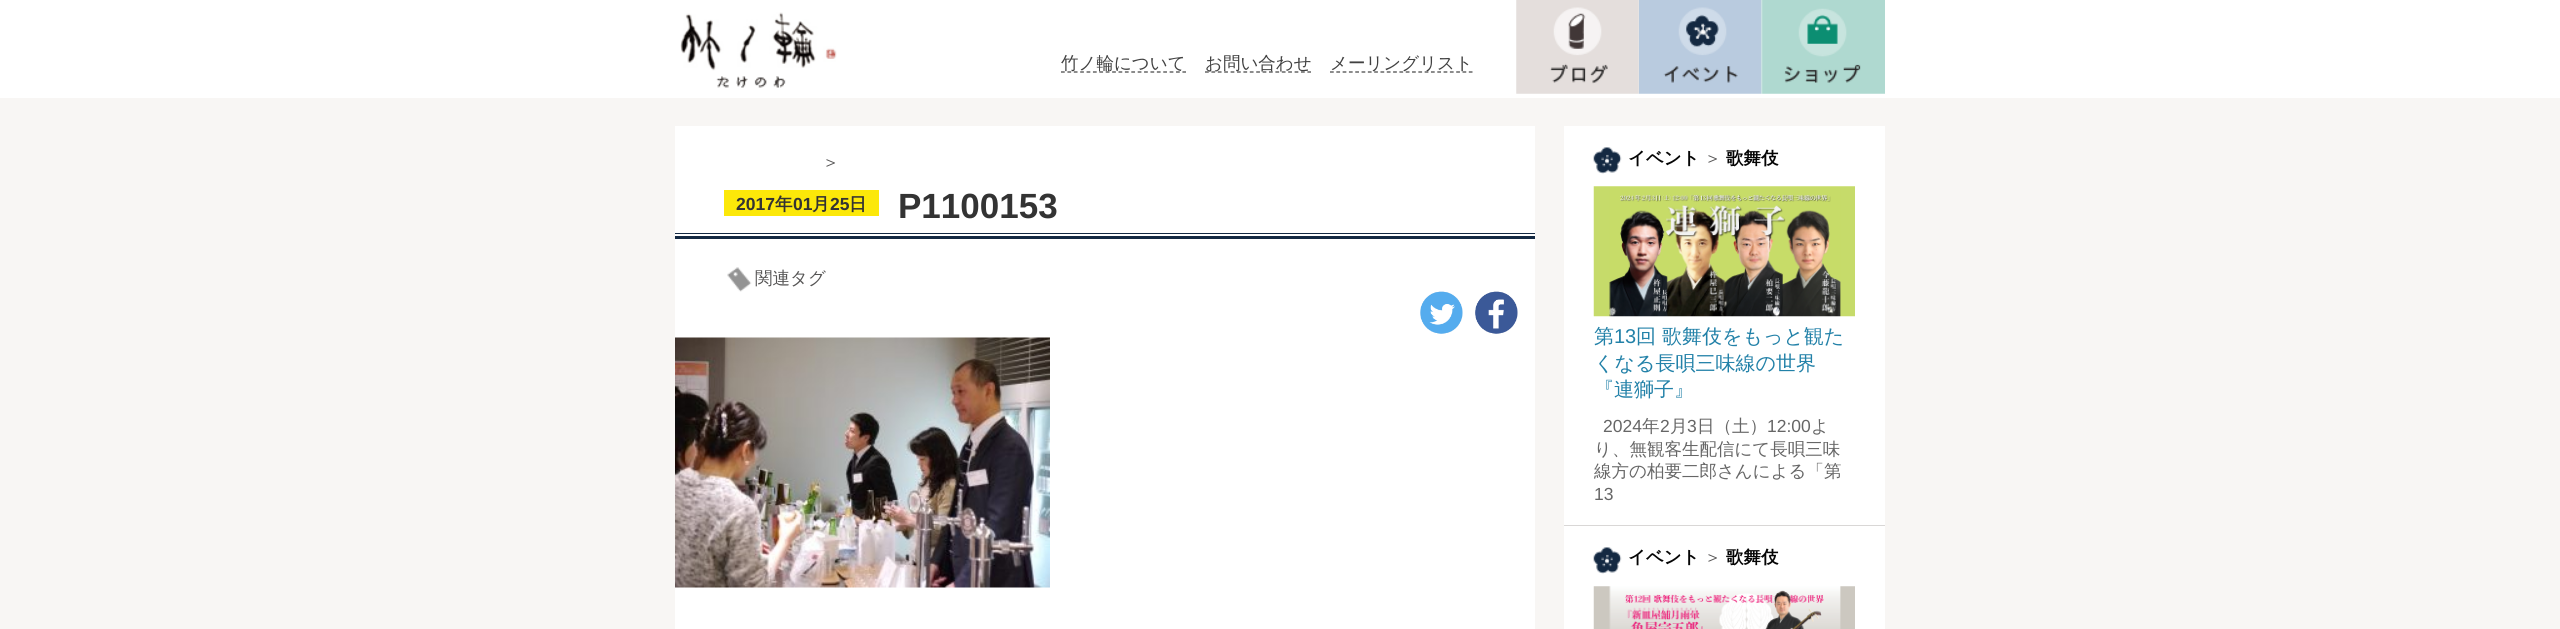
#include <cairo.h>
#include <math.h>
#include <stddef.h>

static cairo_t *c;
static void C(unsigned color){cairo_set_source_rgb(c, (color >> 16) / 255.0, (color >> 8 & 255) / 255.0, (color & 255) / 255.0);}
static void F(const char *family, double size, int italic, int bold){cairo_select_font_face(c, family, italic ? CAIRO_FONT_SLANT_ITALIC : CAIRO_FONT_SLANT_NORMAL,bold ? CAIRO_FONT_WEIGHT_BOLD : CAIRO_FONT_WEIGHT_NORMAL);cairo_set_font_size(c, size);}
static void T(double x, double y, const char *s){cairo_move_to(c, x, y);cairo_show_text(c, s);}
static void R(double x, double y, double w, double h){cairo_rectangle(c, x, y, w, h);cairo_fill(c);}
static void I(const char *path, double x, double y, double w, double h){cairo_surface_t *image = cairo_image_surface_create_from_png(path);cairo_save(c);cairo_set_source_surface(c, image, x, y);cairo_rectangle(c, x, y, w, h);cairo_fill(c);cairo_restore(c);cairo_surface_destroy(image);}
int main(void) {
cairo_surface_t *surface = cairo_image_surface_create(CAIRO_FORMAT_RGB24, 2560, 629);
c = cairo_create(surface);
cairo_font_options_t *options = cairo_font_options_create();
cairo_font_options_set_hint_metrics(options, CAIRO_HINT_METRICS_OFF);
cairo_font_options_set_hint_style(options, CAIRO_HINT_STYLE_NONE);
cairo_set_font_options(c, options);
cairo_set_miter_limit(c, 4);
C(0xffffff);
cairo_paint(c);
I("1.png",680,12,157,76);
cairo_new_path(c);
cairo_move_to(c,1061,72);
cairo_line_to(c,1186,72);
C(0x414141);
cairo_set_line_width(c,1.2);
cairo_set_dash(c,(double[]){3.75,2.64},2,0);
cairo_stroke(c);
F("WenQuanYi Zen Hei Medium",17.5,0,0);
T(1061,69,"竹ノ輪について");
cairo_new_path(c);
cairo_move_to(c,1205,72);
cairo_line_to(c,1311,72);
cairo_set_dash(c,(double[]){3.75,2.65},2,0);
cairo_stroke(c);
T(1205,69,"お問い合わせ");
cairo_new_path(c);
cairo_move_to(c,1330,72);
cairo_line_to(c,1472.5,72);
cairo_set_dash(c,(double[]){3.75,2.56},2,0);
cairo_stroke(c);
T(1330,69,"メーリングリスト");
I("4.png",1761,0,124,94);
I("3.png",1638,0,124,94);
I("2.png",1516,0,123,94);
C(0xf8f6f4);
R(0,98,2560,531);
C(0xffffff);
R(675,126,860,503);
C(0x142942);
R(675,233,860,1);
C(0x555454);
T(822,168,"＞");
C(0xfce809);
R(724,190,155,26);
F("Liberation Sans",17.5,0,1);
C(0x333333);
T(736,210,"2017");
F("WenQuanYi Zen Hei",17.5,0,1);
T(775,210,"年");
F("Liberation Sans",17.5,0,1);
T(793,210,"01");
F("WenQuanYi Zen Hei",17.5,0,1);
T(812,210,"月");
F("Liberation Sans",17.5,0,1);
T(830,210,"25");
F("WenQuanYi Zen Hei",17.5,0,1);
T(849,210,"日");
F("Liberation Sans",35,0,1);
T(898,218,"P1100153");
C(0x142942);
R(675,236,860,3);
I("5.png",727,267,25,25);
F("WenQuanYi Zen Hei Medium",17.5,0,0);
C(0x555454);
T(755,284,"関連タグ");
I("6.png",1420,291,43,43);
I("7.png",1475,291,43,43);
I("8.png",675,337,375,251);
C(0xffffff);
R(1564,126,321,503);
C(0xd9d7d6);
R(1564,525,321,1);
I("9.png",1593,147,29,27);
F("WenQuanYi Zen Hei",17.5,0,1);
C(0x050505);
T(1628,164,"イベント");
F("WenQuanYi Zen Hei Medium",17.5,0,0);
C(0x555454);
T(1704,164,"＞");
F("WenQuanYi Zen Hei",17.5,0,1);
C(0x050505);
T(1726,164,"歌舞伎");
I("10.png",1593,186,262,131);
F("WenQuanYi Zen Hei Medium",20,0,0);
C(0x2281a8);
T(1594,343,"第");
F("Liberation Sans",20,0,0);
T(1614,343,"13");
F("WenQuanYi Zen Hei Medium",20,0,0);
T(1636,343,"回 歌舞伎をもっと観た");
T(1594,370,"くなる長唄三味線の世界");
T(1594,396,"『連獅子』");
F("Liberation Sans",17.5,0,0);
C(0x666666);
T(1603,432,"2024");
F("WenQuanYi Zen Hei Medium",17.5,0,0);
T(1642,432,"年");
F("Liberation Sans",17.5,0,0);
T(1660,432,"2");
F("WenQuanYi Zen Hei Medium",17.5,0,0);
T(1670,432,"月");
F("Liberation Sans",17.5,0,0);
T(1687,432,"3");
F("WenQuanYi Zen Hei Medium",17.5,0,0);
T(1697,432,"日（土）");
F("Liberation Sans",17.5,0,0);
T(1767,432,"12:00");
F("WenQuanYi Zen Hei Medium",17.5,0,0);
T(1811,432,"よ");
T(1594,455,"り、無観客生配信にて長唄三味");
T(1594,477,"線方の柏要二郎さんによる「第");
F("Liberation Sans",17.5,0,0);
T(1594,500,"13");
I("9.png",1593,547,29,27);
F("WenQuanYi Zen Hei",17.5,0,1);
C(0x050505);
T(1628,563,"イベント");
F("WenQuanYi Zen Hei Medium",17.5,0,0);
C(0x555454);
T(1704,563,"＞");
F("WenQuanYi Zen Hei",17.5,0,1);
C(0x050505);
T(1726,563,"歌舞伎");
I("11.png",1593,586,262,43);
cairo_surface_write_to_png(surface, "o.png");
cairo_font_options_destroy(options);
cairo_destroy(c);
cairo_surface_destroy(surface);
return 0;
}
